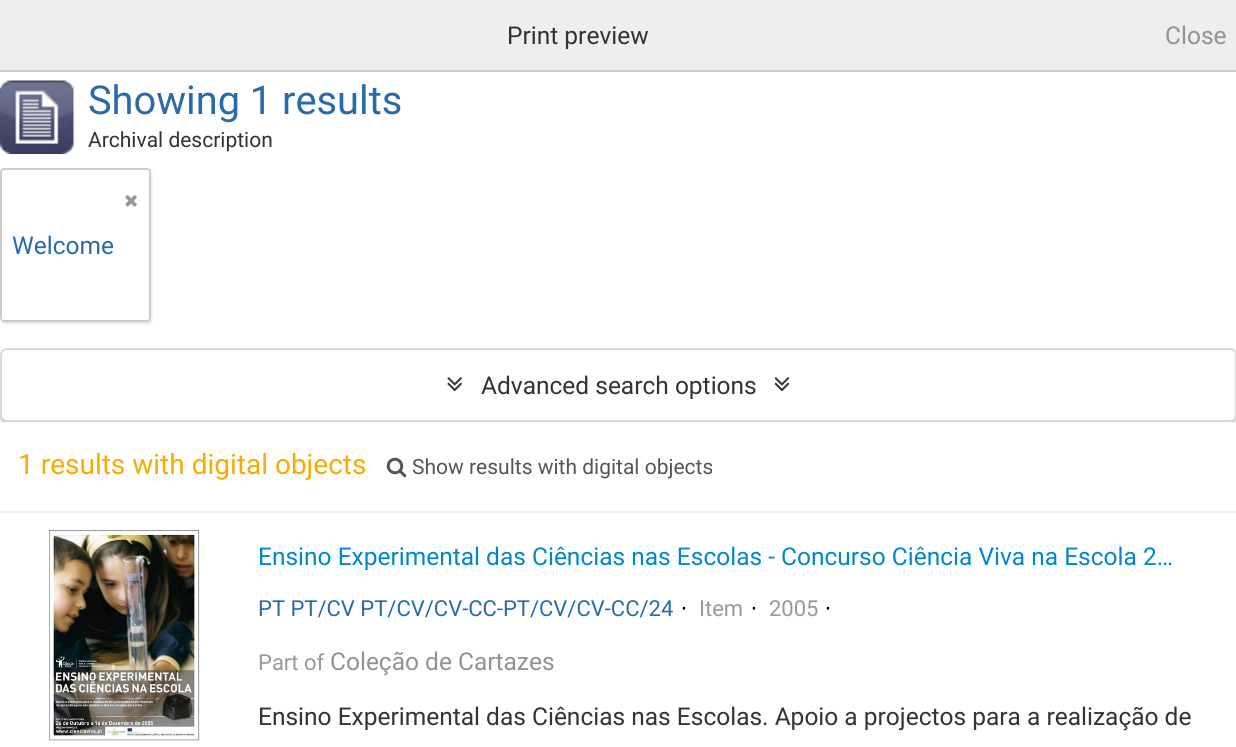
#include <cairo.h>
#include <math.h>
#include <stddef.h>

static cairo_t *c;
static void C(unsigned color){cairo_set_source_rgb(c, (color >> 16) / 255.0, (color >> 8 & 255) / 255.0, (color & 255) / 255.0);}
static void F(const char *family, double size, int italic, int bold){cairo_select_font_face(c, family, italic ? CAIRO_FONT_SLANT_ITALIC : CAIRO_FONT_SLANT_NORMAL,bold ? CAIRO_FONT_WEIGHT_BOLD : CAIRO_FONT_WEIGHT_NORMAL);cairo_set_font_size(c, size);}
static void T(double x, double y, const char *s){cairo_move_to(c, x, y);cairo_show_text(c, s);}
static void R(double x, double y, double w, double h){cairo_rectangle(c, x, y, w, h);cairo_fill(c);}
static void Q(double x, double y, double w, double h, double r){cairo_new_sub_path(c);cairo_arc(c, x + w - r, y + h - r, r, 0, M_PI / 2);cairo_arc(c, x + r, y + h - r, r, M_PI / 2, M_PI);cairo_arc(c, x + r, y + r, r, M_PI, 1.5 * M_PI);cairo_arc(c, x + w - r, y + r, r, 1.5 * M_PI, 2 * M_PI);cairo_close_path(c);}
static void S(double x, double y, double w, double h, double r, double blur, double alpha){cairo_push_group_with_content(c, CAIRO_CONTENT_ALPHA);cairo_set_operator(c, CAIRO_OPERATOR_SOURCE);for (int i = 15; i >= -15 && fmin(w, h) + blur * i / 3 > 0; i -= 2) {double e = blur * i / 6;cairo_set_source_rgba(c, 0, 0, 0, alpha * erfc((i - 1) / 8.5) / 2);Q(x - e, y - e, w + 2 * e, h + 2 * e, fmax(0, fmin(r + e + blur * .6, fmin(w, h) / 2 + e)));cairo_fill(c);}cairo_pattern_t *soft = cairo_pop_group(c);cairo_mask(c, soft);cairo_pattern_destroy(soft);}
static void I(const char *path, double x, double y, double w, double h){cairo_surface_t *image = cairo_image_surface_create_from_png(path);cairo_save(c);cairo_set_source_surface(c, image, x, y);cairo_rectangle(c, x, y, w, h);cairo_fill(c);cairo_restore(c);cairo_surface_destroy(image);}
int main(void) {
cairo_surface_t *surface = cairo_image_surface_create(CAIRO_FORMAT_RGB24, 1236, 747);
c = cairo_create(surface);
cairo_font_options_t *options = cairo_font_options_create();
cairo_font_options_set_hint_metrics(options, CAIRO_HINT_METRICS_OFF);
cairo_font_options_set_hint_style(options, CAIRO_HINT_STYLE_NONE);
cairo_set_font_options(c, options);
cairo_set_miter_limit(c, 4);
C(0xffffff);
cairo_paint(c);
C(0xeeeeee);
R(0,0,1236,70);
C(0xcccccc);
R(0,70,1236,2);
F("Roboto",24.5,0,0);
C(0x333333);
T(507,44,"Print preview");
C(0x929292);
T(1165,44,"Close");
I("1.png",0,80,74,74);
F("Roboto",39.75,0,0);
C(0x286ba9);
T(88,114,"Showing 1 results");
F("Roboto",21,0,0);
C(0x333333);
T(88,147,"Archival description");
C(0x000000);
S(2,170,150,154,4,1,.1);
C(0xffffff);
Q(1,169,149,152,3);
cairo_fill_preserve(c);
C(0xcccccc);
cairo_stroke(c);
I("2.png",125,195,12,12);
F("Roboto",24.5,0,0);
C(0x286ba9);
T(12,254,"Welcome");
C(0x000000);
S(0,350,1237,74,7,1,.2);
C(0xffffff);
Q(1,349,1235,72,6);
cairo_fill_preserve(c);
C(0xd9d9d9);
cairo_stroke(c);
I("3.png",447,377,15,15);
C(0x333333);
T(481,394,"Advanced search options");
I("4.png",774,377,16,15);
C(0xffffff);
Q(0,422,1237,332,7);
cairo_fill(c);
C(0xeeeeee);
R(0,511,1236,2);
F("Roboto",28,0,0);
C(0xf6ac00);
T(18,474,"1 results with digital objects");
I("5.png",386,457,21,21);
F("Roboto",21,0,0);
C(0x555555);
T(412,474,"Show results with digital objects");
I("6.png",49,530,151,211);
F("Roboto",24.5,0,0);
C(0x0088cc);
T(258,565,"Ensino Experimental das Ciências nas Escolas - Concurso Ciência Viva na Escola 2…");
F("Roboto",22,0,0);
C(0x286ba9);
T(258,616,"PT PT/CV PT/CV/CV-CC-PT/CV/CV-CC/24");
F("Open Sans",22,0,0);
C(0x000000);
T(681,616,"·");
F("Roboto",22,0,0);
C(0x999999);
T(699,616,"Item");
F("Open Sans",22,0,0);
C(0x000000);
T(751,616,"·");
F("Roboto",22,0,0);
C(0x999999);
T(769,616,"2005");
F("Open Sans",22,0,0);
C(0x000000);
T(825,616,"·");
F("Roboto",22,0,0);
C(0x999999);
T(258,670,"Part of");
F("Roboto",24.5,0,0);
C(0x929292);
T(330,670,"Coleção de Cartazes");
C(0x333333);
T(258,725,"Ensino Experimental das Ciências nas Escolas. Apoio a projectos para a realização de");
cairo_surface_write_to_png(surface, "o.png");
cairo_font_options_destroy(options);
cairo_destroy(c);
cairo_surface_destroy(surface);
return 0;
}
